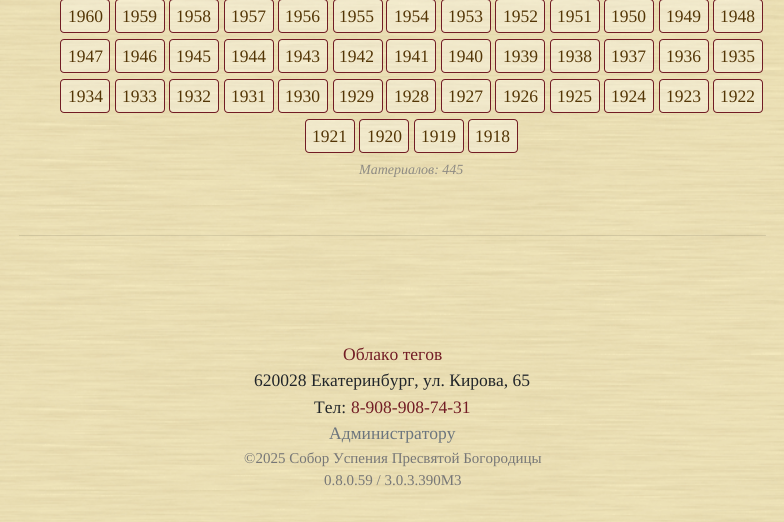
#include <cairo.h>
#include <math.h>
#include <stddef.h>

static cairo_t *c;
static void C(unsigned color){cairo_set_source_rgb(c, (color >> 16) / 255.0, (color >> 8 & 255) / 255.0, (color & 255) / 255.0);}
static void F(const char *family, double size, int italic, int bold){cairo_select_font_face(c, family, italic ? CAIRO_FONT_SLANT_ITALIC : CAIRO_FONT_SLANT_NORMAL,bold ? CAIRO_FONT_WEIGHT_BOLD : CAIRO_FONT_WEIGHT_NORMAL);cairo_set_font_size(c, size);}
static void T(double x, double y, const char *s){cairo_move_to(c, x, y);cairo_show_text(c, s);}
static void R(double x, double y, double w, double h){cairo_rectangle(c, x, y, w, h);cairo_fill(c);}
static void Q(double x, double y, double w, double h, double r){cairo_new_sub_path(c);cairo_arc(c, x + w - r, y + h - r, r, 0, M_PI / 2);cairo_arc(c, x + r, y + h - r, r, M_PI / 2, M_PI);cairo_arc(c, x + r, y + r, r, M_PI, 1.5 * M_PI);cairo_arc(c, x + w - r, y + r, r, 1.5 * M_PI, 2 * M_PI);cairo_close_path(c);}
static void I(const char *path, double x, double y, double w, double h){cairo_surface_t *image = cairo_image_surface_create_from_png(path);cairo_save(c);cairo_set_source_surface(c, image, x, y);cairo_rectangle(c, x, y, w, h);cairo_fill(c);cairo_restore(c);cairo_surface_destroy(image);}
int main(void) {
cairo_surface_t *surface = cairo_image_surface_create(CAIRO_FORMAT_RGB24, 784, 522);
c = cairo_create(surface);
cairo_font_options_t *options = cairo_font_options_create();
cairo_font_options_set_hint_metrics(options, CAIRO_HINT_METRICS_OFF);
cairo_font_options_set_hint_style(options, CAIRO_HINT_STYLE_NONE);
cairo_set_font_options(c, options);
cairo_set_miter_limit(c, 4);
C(0xffffff);
cairo_paint(c);
I("1.png",0,0,784,522);
cairo_set_source_rgba(c,1,1,1,0.3);
Q(60.5,-.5,49,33,3.5);
cairo_fill_preserve(c);
C(0x721c24);
cairo_set_line_width(c,1);
cairo_stroke(c);
F("Liberation Serif",17.5,0,0);
C(0x533505);
T(68,22,"1960");
cairo_set_source_rgba(c,1,1,1,0.3);
Q(115.5,-.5,49,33,3.5);
cairo_fill_preserve(c);
C(0x721c24);
cairo_stroke(c);
C(0x533505);
T(122,22,"1959");
cairo_set_source_rgba(c,1,1,1,0.3);
Q(169.5,-.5,49,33,3.5);
cairo_fill_preserve(c);
C(0x721c24);
cairo_stroke(c);
C(0x533505);
T(176,22,"1958");
cairo_set_source_rgba(c,1,1,1,0.3);
Q(224.5,-.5,49,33,3.5);
cairo_fill_preserve(c);
C(0x721c24);
cairo_stroke(c);
C(0x533505);
T(231,22,"1957");
cairo_set_source_rgba(c,1,1,1,0.3);
Q(278.5,-.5,49,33,3.5);
cairo_fill_preserve(c);
C(0x721c24);
cairo_stroke(c);
C(0x533505);
T(285,22,"1956");
cairo_set_source_rgba(c,1,1,1,0.3);
Q(333.5,-.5,49,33,3.5);
cairo_fill_preserve(c);
C(0x721c24);
cairo_stroke(c);
C(0x533505);
T(339,22,"1955");
cairo_set_source_rgba(c,1,1,1,0.3);
Q(386.5,-.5,49,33,3.5);
cairo_fill_preserve(c);
C(0x721c24);
cairo_stroke(c);
C(0x533505);
T(394,22,"1954");
cairo_set_source_rgba(c,1,1,1,0.3);
Q(441.5,-.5,49,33,3.5);
cairo_fill_preserve(c);
C(0x721c24);
cairo_stroke(c);
C(0x533505);
T(448,22,"1953");
cairo_set_source_rgba(c,1,1,1,0.3);
Q(495.5,-.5,49,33,3.5);
cairo_fill_preserve(c);
C(0x721c24);
cairo_stroke(c);
C(0x533505);
T(503,22,"1952");
cairo_set_source_rgba(c,1,1,1,0.3);
Q(550.5,-.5,49,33,3.5);
cairo_fill_preserve(c);
C(0x721c24);
cairo_stroke(c);
C(0x533505);
T(557,22,"1951");
cairo_set_source_rgba(c,1,1,1,0.3);
Q(604.5,-.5,49,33,3.5);
cairo_fill_preserve(c);
C(0x721c24);
cairo_stroke(c);
C(0x533505);
T(611,22,"1950");
cairo_set_source_rgba(c,1,1,1,0.3);
Q(659.5,-.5,49,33,3.5);
cairo_fill_preserve(c);
C(0x721c24);
cairo_stroke(c);
C(0x533505);
T(666,22,"1949");
cairo_set_source_rgba(c,1,1,1,0.3);
Q(713.5,-.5,49,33,3.5);
cairo_fill_preserve(c);
C(0x721c24);
cairo_stroke(c);
C(0x533505);
T(720,22,"1948");
cairo_set_source_rgba(c,1,1,1,0.3);
Q(60.5,39.5,49,33,3.5);
cairo_fill_preserve(c);
C(0x721c24);
cairo_stroke(c);
C(0x533505);
T(68,62,"1947");
cairo_set_source_rgba(c,1,1,1,0.3);
Q(115.5,39.5,49,33,3.5);
cairo_fill_preserve(c);
C(0x721c24);
cairo_stroke(c);
C(0x533505);
T(122,62,"1946");
cairo_set_source_rgba(c,1,1,1,0.3);
Q(169.5,39.5,49,33,3.5);
cairo_fill_preserve(c);
C(0x721c24);
cairo_stroke(c);
C(0x533505);
T(176,62,"1945");
cairo_set_source_rgba(c,1,1,1,0.3);
Q(224.5,39.5,49,33,3.5);
cairo_fill_preserve(c);
C(0x721c24);
cairo_stroke(c);
C(0x533505);
T(231,62,"1944");
cairo_set_source_rgba(c,1,1,1,0.3);
Q(278.5,39.5,49,33,3.5);
cairo_fill_preserve(c);
C(0x721c24);
cairo_stroke(c);
C(0x533505);
T(285,62,"1943");
cairo_set_source_rgba(c,1,1,1,0.3);
Q(333.5,39.5,49,33,3.5);
cairo_fill_preserve(c);
C(0x721c24);
cairo_stroke(c);
C(0x533505);
T(339,62,"1942");
cairo_set_source_rgba(c,1,1,1,0.3);
Q(386.5,39.5,49,33,3.5);
cairo_fill_preserve(c);
C(0x721c24);
cairo_stroke(c);
C(0x533505);
T(394,62,"1941");
cairo_set_source_rgba(c,1,1,1,0.3);
Q(441.5,39.5,49,33,3.5);
cairo_fill_preserve(c);
C(0x721c24);
cairo_stroke(c);
C(0x533505);
T(448,62,"1940");
cairo_set_source_rgba(c,1,1,1,0.3);
Q(495.5,39.5,49,33,3.5);
cairo_fill_preserve(c);
C(0x721c24);
cairo_stroke(c);
C(0x533505);
T(503,62,"1939");
cairo_set_source_rgba(c,1,1,1,0.3);
Q(550.5,39.5,49,33,3.5);
cairo_fill_preserve(c);
C(0x721c24);
cairo_stroke(c);
C(0x533505);
T(557,62,"1938");
cairo_set_source_rgba(c,1,1,1,0.3);
Q(604.5,39.5,49,33,3.5);
cairo_fill_preserve(c);
C(0x721c24);
cairo_stroke(c);
C(0x533505);
T(611,62,"1937");
cairo_set_source_rgba(c,1,1,1,0.3);
Q(659.5,39.5,49,33,3.5);
cairo_fill_preserve(c);
C(0x721c24);
cairo_stroke(c);
C(0x533505);
T(666,62,"1936");
cairo_set_source_rgba(c,1,1,1,0.3);
Q(713.5,39.5,49,33,3.5);
cairo_fill_preserve(c);
C(0x721c24);
cairo_stroke(c);
C(0x533505);
T(720,62,"1935");
cairo_set_source_rgba(c,1,1,1,0.3);
Q(60.5,79.5,49,33,3.5);
cairo_fill_preserve(c);
C(0x721c24);
cairo_stroke(c);
C(0x533505);
T(68,102,"1934");
cairo_set_source_rgba(c,1,1,1,0.3);
Q(115.5,79.5,49,33,3.5);
cairo_fill_preserve(c);
C(0x721c24);
cairo_stroke(c);
C(0x533505);
T(122,102,"1933");
cairo_set_source_rgba(c,1,1,1,0.3);
Q(169.5,79.5,49,33,3.5);
cairo_fill_preserve(c);
C(0x721c24);
cairo_stroke(c);
C(0x533505);
T(176,102,"1932");
cairo_set_source_rgba(c,1,1,1,0.3);
Q(224.5,79.5,49,33,3.5);
cairo_fill_preserve(c);
C(0x721c24);
cairo_stroke(c);
C(0x533505);
T(231,102,"1931");
cairo_set_source_rgba(c,1,1,1,0.3);
Q(278.5,79.5,49,33,3.5);
cairo_fill_preserve(c);
C(0x721c24);
cairo_stroke(c);
C(0x533505);
T(285,102,"1930");
cairo_set_source_rgba(c,1,1,1,0.3);
Q(333.5,79.5,49,33,3.5);
cairo_fill_preserve(c);
C(0x721c24);
cairo_stroke(c);
C(0x533505);
T(339,102,"1929");
cairo_set_source_rgba(c,1,1,1,0.3);
Q(386.5,79.5,49,33,3.5);
cairo_fill_preserve(c);
C(0x721c24);
cairo_stroke(c);
C(0x533505);
T(394,102,"1928");
cairo_set_source_rgba(c,1,1,1,0.3);
Q(441.5,79.5,49,33,3.5);
cairo_fill_preserve(c);
C(0x721c24);
cairo_stroke(c);
C(0x533505);
T(448,102,"1927");
cairo_set_source_rgba(c,1,1,1,0.3);
Q(495.5,79.5,49,33,3.5);
cairo_fill_preserve(c);
C(0x721c24);
cairo_stroke(c);
C(0x533505);
T(503,102,"1926");
cairo_set_source_rgba(c,1,1,1,0.3);
Q(550.5,79.5,49,33,3.5);
cairo_fill_preserve(c);
C(0x721c24);
cairo_stroke(c);
C(0x533505);
T(557,102,"1925");
cairo_set_source_rgba(c,1,1,1,0.3);
Q(604.5,79.5,49,33,3.5);
cairo_fill_preserve(c);
C(0x721c24);
cairo_stroke(c);
C(0x533505);
T(611,102,"1924");
cairo_set_source_rgba(c,1,1,1,0.3);
Q(659.5,79.5,49,33,3.5);
cairo_fill_preserve(c);
C(0x721c24);
cairo_stroke(c);
C(0x533505);
T(666,102,"1923");
cairo_set_source_rgba(c,1,1,1,0.3);
Q(713.5,79.5,49,33,3.5);
cairo_fill_preserve(c);
C(0x721c24);
cairo_stroke(c);
C(0x533505);
T(720,102,"1922");
cairo_set_source_rgba(c,1,1,1,0.3);
Q(305.5,119.5,49,33,3.5);
cairo_fill_preserve(c);
C(0x721c24);
cairo_stroke(c);
C(0x533505);
T(312,142,"1921");
cairo_set_source_rgba(c,1,1,1,0.3);
Q(359.5,119.5,49,33,3.5);
cairo_fill_preserve(c);
C(0x721c24);
cairo_stroke(c);
C(0x533505);
T(367,142,"1920");
cairo_set_source_rgba(c,1,1,1,0.3);
Q(414.5,119.5,49,33,3.5);
cairo_fill_preserve(c);
C(0x721c24);
cairo_stroke(c);
C(0x533505);
T(421,142,"1919");
cairo_set_source_rgba(c,1,1,1,0.3);
Q(468.5,119.5,49,33,3.5);
cairo_fill_preserve(c);
C(0x721c24);
cairo_stroke(c);
C(0x533505);
T(475,142,"1918");
F("Liberation Serif",14,1,0);
C(0x8e8b83);
T(359,174,"Материалов: 445");
cairo_set_source_rgba(c,0,0,0,0.1);
R(19,235,747,1);
F("Liberation Serif",17.5,0,0);
C(0x721c24);
T(343,360,"Облако тегов");
C(0x212529);
T(254,386,"620028 Екатеринбург, ул. Кирова, 65");
T(314,413,"Тел:");
C(0x721c24);
T(351,413,"8-908-908-74-31");
C(0x6c757d);
T(329,439,"Администратору");
F("Liberation Serif",15,0,0);
C(0x777777);
T(244,463,"©2025 Собор Успения Пресвятой Богородицы");
T(324,485,"0.8.0.59 / 3.0.3.390M3");
cairo_surface_write_to_png(surface, "o.png");
cairo_font_options_destroy(options);
cairo_destroy(c);
cairo_surface_destroy(surface);
return 0;
}
